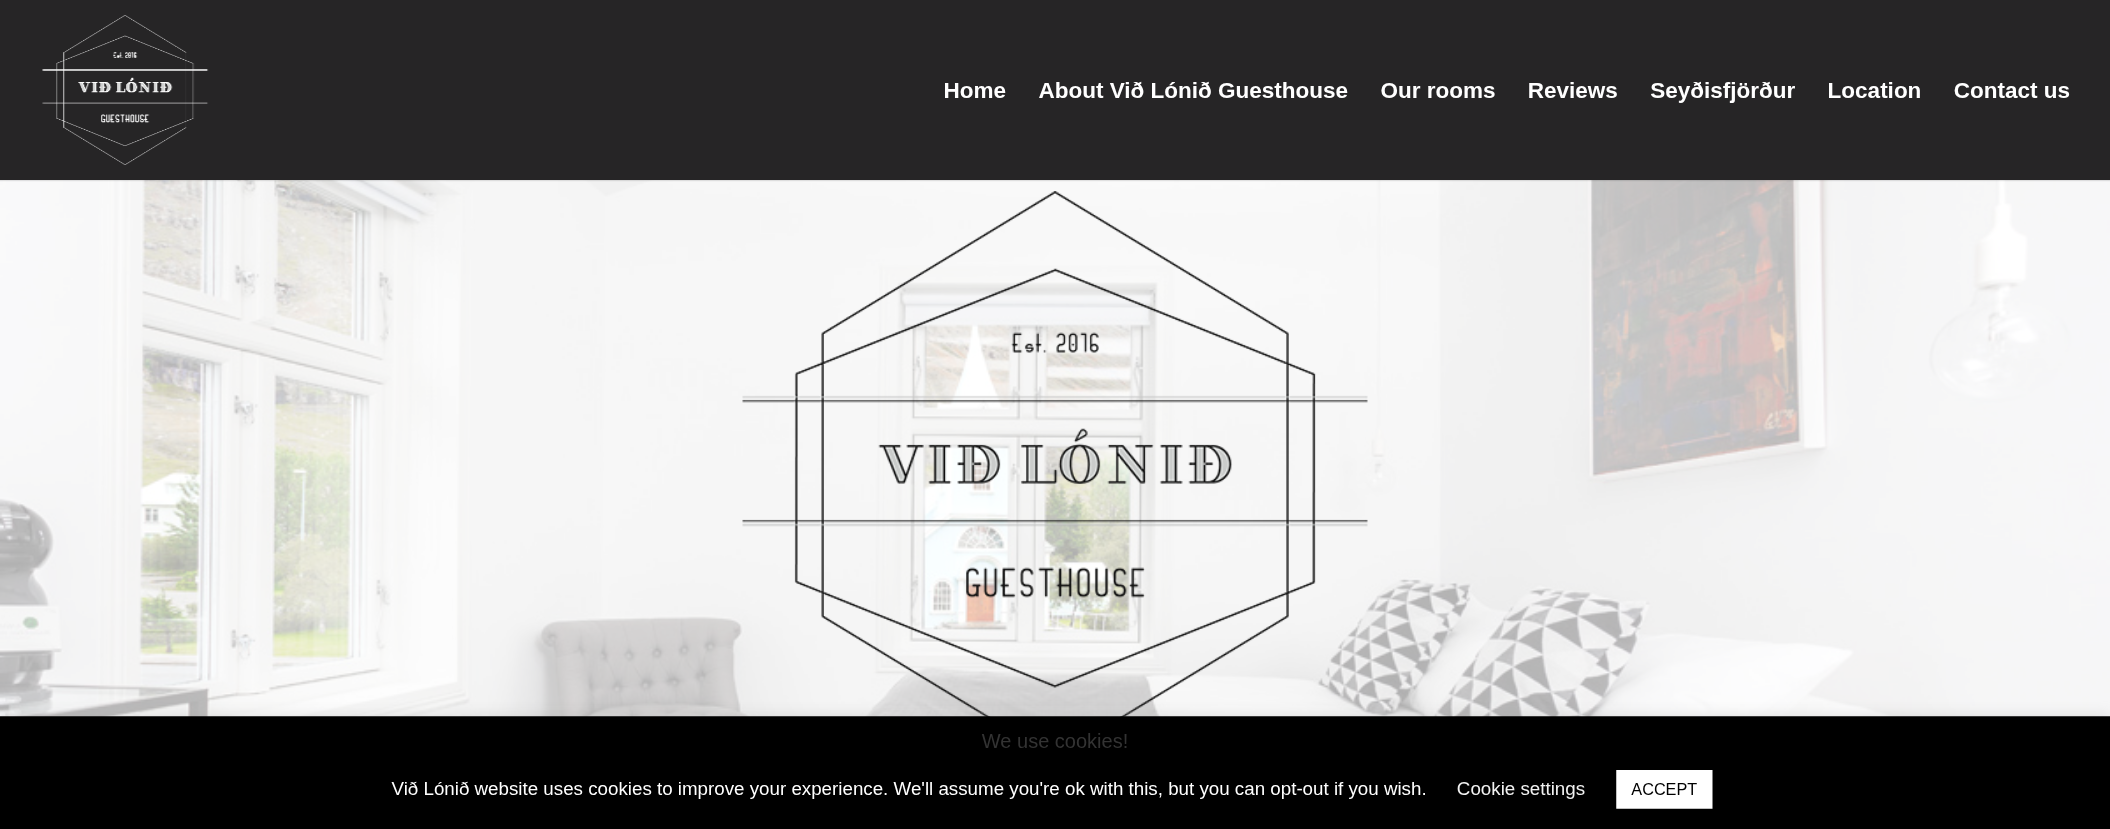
#include <cairo.h>
#include <math.h>
#include <stddef.h>

static cairo_t *c;
static void C(unsigned color){cairo_set_source_rgb(c, (color >> 16) / 255.0, (color >> 8 & 255) / 255.0, (color & 255) / 255.0);}
static void I(const char *path, double x, double y, double w, double h){cairo_surface_t *image = cairo_image_surface_create_from_png(path);cairo_save(c);cairo_set_source_surface(c, image, x, y);cairo_rectangle(c, x, y, w, h);cairo_fill(c);cairo_restore(c);cairo_surface_destroy(image);}
int main(void) {
cairo_surface_t *surface = cairo_image_surface_create(CAIRO_FORMAT_RGB24, 2110, 829);
c = cairo_create(surface);
cairo_font_options_t *options = cairo_font_options_create();
cairo_font_options_set_hint_metrics(options, CAIRO_HINT_METRICS_OFF);
cairo_font_options_set_hint_style(options, CAIRO_HINT_STYLE_NONE);
cairo_set_font_options(c, options);
cairo_set_miter_limit(c, 4);
C(0xffffff);
cairo_paint(c);
I("1.png",0,0,2110,829);
cairo_surface_write_to_png(surface, "o.png");
cairo_font_options_destroy(options);
cairo_destroy(c);
cairo_surface_destroy(surface);
return 0;
}
